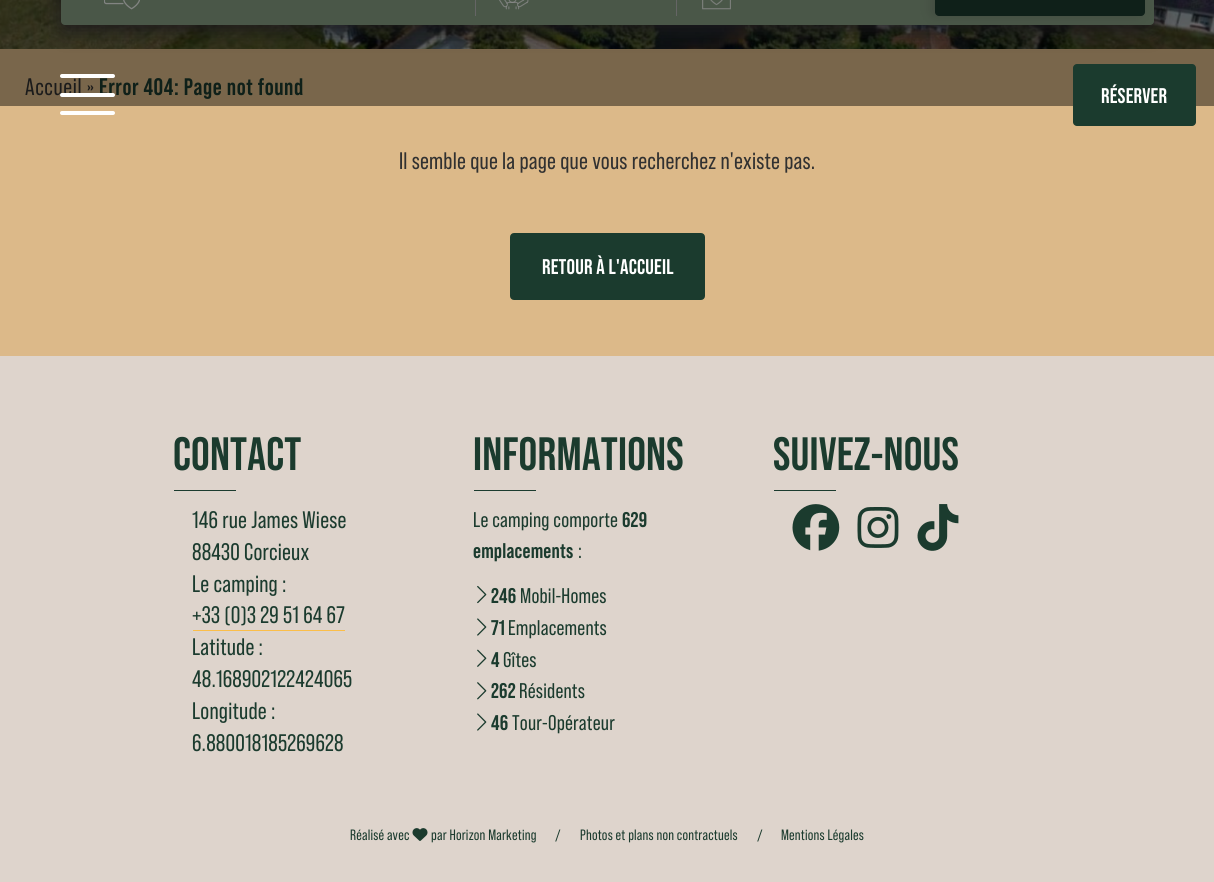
#include <cairo.h>
#include <math.h>
#include <stddef.h>

static cairo_t *c;
static void C(unsigned color){cairo_set_source_rgb(c, (color >> 16) / 255.0, (color >> 8 & 255) / 255.0, (color & 255) / 255.0);}
static void F(const char *family, double size, int italic, int bold){cairo_select_font_face(c, family, italic ? CAIRO_FONT_SLANT_ITALIC : CAIRO_FONT_SLANT_NORMAL,bold ? CAIRO_FONT_WEIGHT_BOLD : CAIRO_FONT_WEIGHT_NORMAL);cairo_set_font_size(c, size);}
static void L(double x, double y, const char *s, double letter, double word){cairo_move_to(c, x, y);while (*s) {char ch[5] = {0};int n = 0;do ch[n++] = *s++; while ((*s & 0xC0) == 0x80);cairo_show_text(c, ch);cairo_rel_move_to(c, letter + word * (*ch == ' '), 0);}}
static void R(double x, double y, double w, double h){cairo_rectangle(c, x, y, w, h);cairo_fill(c);}
static void Q(double x, double y, double w, double h, double r){cairo_new_sub_path(c);cairo_arc(c, x + w - r, y + h - r, r, 0, M_PI / 2);cairo_arc(c, x + r, y + h - r, r, M_PI / 2, M_PI);cairo_arc(c, x + r, y + r, r, M_PI, 1.5 * M_PI);cairo_arc(c, x + w - r, y + r, r, 1.5 * M_PI, 2 * M_PI);cairo_close_path(c);}
static void S(double x, double y, double w, double h, double r, double blur, double alpha){cairo_push_group_with_content(c, CAIRO_CONTENT_ALPHA);cairo_set_operator(c, CAIRO_OPERATOR_SOURCE);for (int i = 15; i >= -15 && fmin(w, h) + blur * i / 3 > 0; i -= 2) {double e = blur * i / 6;cairo_set_source_rgba(c, 0, 0, 0, alpha * erfc((i - 1) / 8.5) / 2);Q(x - e, y - e, w + 2 * e, h + 2 * e, fmax(0, fmin(r + e + blur * .6, fmin(w, h) / 2 + e)));cairo_fill(c);}cairo_pattern_t *soft = cairo_pop_group(c);cairo_mask(c, soft);cairo_pattern_destroy(soft);}
static void I(const char *path, double x, double y, double w, double h){cairo_surface_t *image = cairo_image_surface_create_from_png(path);cairo_save(c);cairo_set_source_surface(c, image, x, y);cairo_rectangle(c, x, y, w, h);cairo_fill(c);cairo_restore(c);cairo_surface_destroy(image);}
int main(void) {
cairo_surface_t *surface = cairo_image_surface_create(CAIRO_FORMAT_RGB24, 1214, 882);
c = cairo_create(surface);
cairo_font_options_t *options = cairo_font_options_create();
cairo_font_options_set_hint_metrics(options, CAIRO_HINT_METRICS_OFF);
cairo_font_options_set_hint_style(options, CAIRO_HINT_STYLE_NONE);
cairo_set_font_options(c, options);
cairo_set_miter_limit(c, 4);
C(0xdcb989);
cairo_paint(c);
I("1.png",0,0,1214,49);
C(0x79664b);
R(0,49,1214,57);
C(0x1c1a1c);
S(61,-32,1093,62,4,9.5,1);
C(0x4a5748);
Q(61,-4,1093,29,4);
cairo_fill(c);
I("2.png",104,0,36,10);
C(0x656565);
R(475,0,1,16);
I("3.png",499,0,30,10);
R(676,0,1,16);
I("4.png",702,0,29,10);
C(0x1c1a1c);
S(931,-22,210,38,4,6,.2);
C(0x0f2019);
Q(935,-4,210,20,4);
cairo_fill(c);
F("Bebas Neue",23.9,0,0);
C(0x1b1b1b);
L(25,95,"Accueil »",.6,0);
F("Bebas Neue",23.9,0,1);
C(0x0f2019);
L(99,95,"Error 404: Page not found",.6,0);
F("Bebas Neue",23.9,0,0);
C(0x313131);
L(399,169,"Il semble que la page que vous recherchez n'existe pas.",.2,0);
C(0x1b3b2e);
Q(511.5,234.5,192,64,2.5);
cairo_fill_preserve(c);
cairo_set_line_width(c,3);
cairo_stroke(c);
F("Bebas Neue",21.25,0,1);
C(0xffffff);
L(542,274,"RETOUR À L'ACCUEIL",.2,0);
Q(60,74,55,4,2);
cairo_fill(c);
Q(60,93,55,4,2);
cairo_fill(c);
Q(60,111,55,4,2);
cairo_fill(c);
C(0x1b3b2e);
Q(1073,64,123,62,4);
cairo_fill(c);
C(0xffffff);
L(1101,103,"RÉSERVER",.2,0);
C(0xded4cc);
R(0,356,1214,526);
F("Bebas Neue",46.75,0,1);
C(0x1b3b2e);
L(173,470,"CONTACT",.2,0);
R(174,490,62,1);
F("Bebas Neue",23.9,0,0);
L(192,528,"146 rue James Wiese",.2,0);
L(192,560,"88430 Corcieux",.2,0);
L(192,592,"Le camping :",.2,0);
L(192,623,"+33 (0)3 29 51 64 67",.2,0);
C(0xfbbe49);
R(193,630,152,1);
C(0x1b3b2e);
L(192,655,"Latitude :",.2,0);
L(192,687,"48.168902122424065",.2,0);
L(192,719,"Longitude :",.2,0);
L(192,751,"6.880018185269628",.2,0);
F("Bebas Neue",46.75,0,1);
L(473,470,"INFORMATIONS",.2,0);
R(474,490,62,1);
F("Bebas Neue",21.25,0,0);
L(473,527,"Le camping comporte",.2,0);
F("Bebas Neue",21.25,0,1);
L(622,527,"629",.2,0);
L(473,558,"emplacements",.2,0);
F("Bebas Neue",21.25,0,0);
L(578,558,":",.2,0);
I("5.png",477,585,10,19);
F("Bebas Neue",21.25,0,1);
L(491,603,"246",.2,0);
F("Bebas Neue",21.25,0,0);
L(520,603,"Mobil-Homes",.2,0);
I("6.png",477,618,10,18);
F("Bebas Neue",21.25,0,1);
L(491,635,"71",.2,0);
F("Bebas Neue",21.25,0,0);
L(508,635,"Emplacements",.2,0);
I("7.png",477,649,10,18);
F("Bebas Neue",21.25,0,1);
L(491,667,"4",.2,0);
F("Bebas Neue",21.25,0,0);
L(503,667,"Gîtes",.2,0);
I("8.png",477,682,10,18);
F("Bebas Neue",21.25,0,1);
L(491,698,"262",.2,0);
F("Bebas Neue",21.25,0,0);
L(519,698,"Résidents",.2,0);
I("6.png",477,713,10,18);
F("Bebas Neue",21.25,0,1);
L(491,730,"46",.2,0);
F("Bebas Neue",21.25,0,0);
L(512,730,"Tour-Opérateur",.2,0);
F("Bebas Neue",46.75,0,1);
L(773,470,"SUIVEZ-NOUS",.2,0);
R(774,490,62,1);
I("9.png",792,504,48,47);
I("10.png",857,507,42,41);
I("11.png",917,504,42,47);
F("Bebas Neue",15,0,0);
L(350,840,"Réalisé avec",.2,0);
I("12.png",412,828,16,13);
L(431,840,"par Horizon Marketing",.2,0);
L(555,840,"/",.2,0);
L(580,840,"Photos et plans non contractuels",.2,0);
L(757,840,"/",.2,0);
L(781,840,"Mentions Légales",.2,0);
cairo_surface_write_to_png(surface, "o.png");
cairo_font_options_destroy(options);
cairo_destroy(c);
cairo_surface_destroy(surface);
return 0;
}
